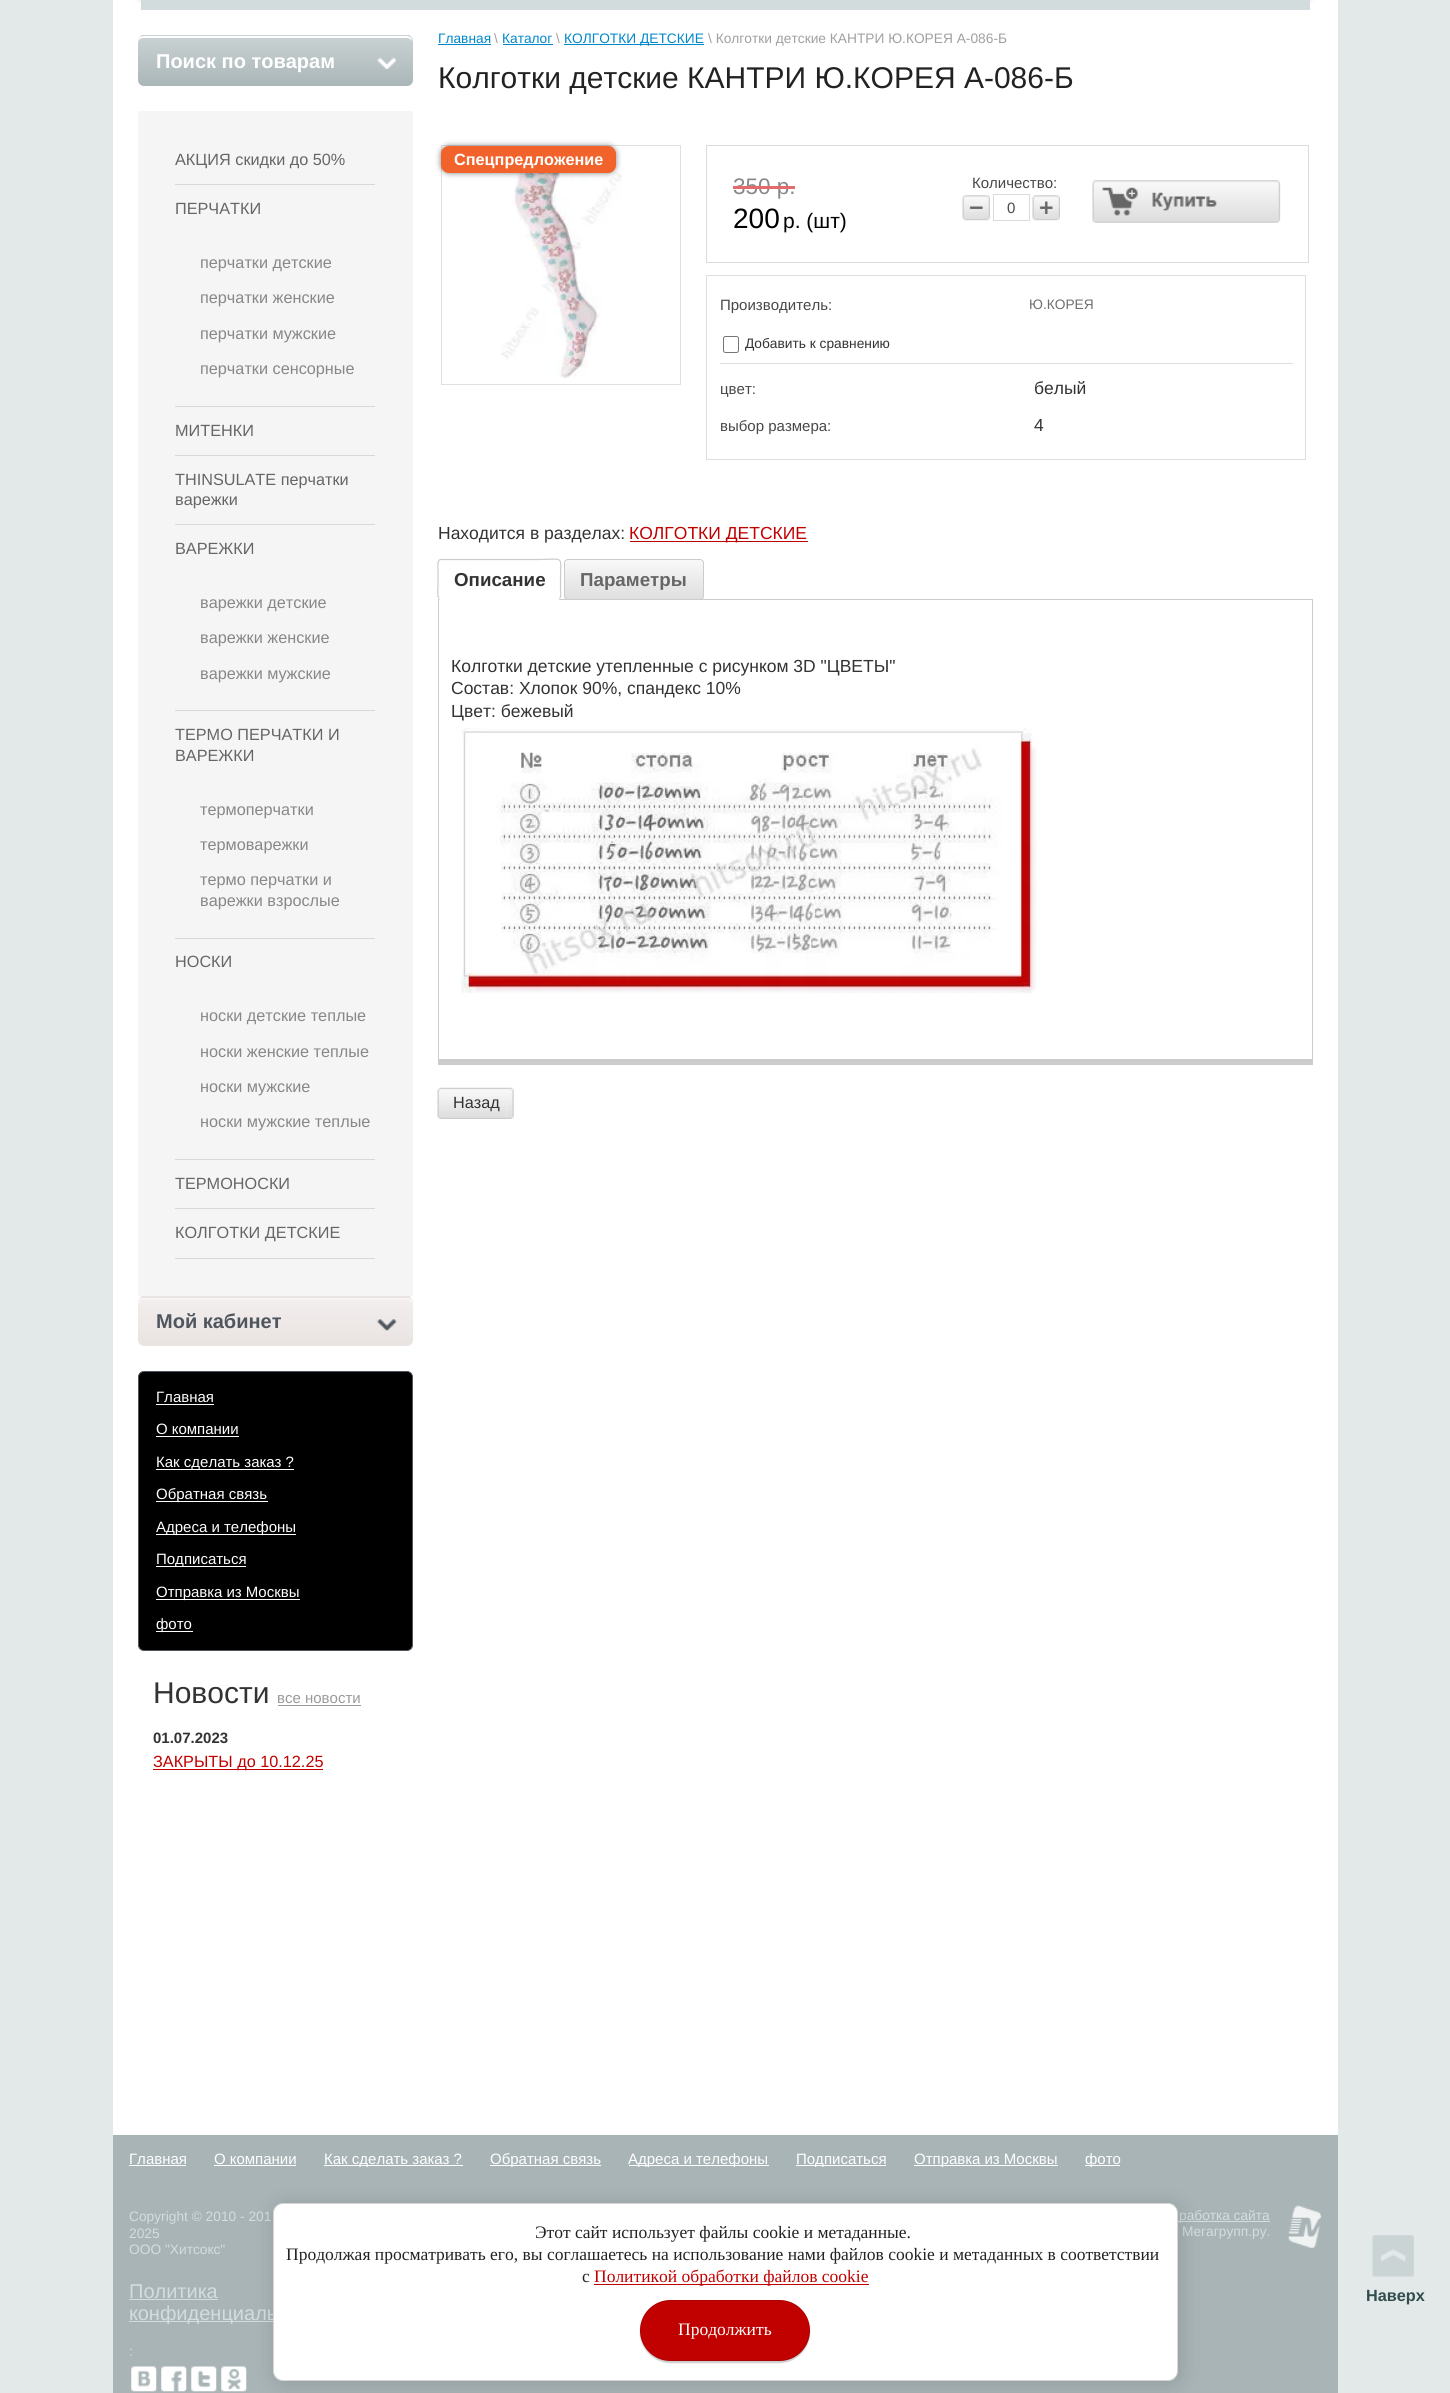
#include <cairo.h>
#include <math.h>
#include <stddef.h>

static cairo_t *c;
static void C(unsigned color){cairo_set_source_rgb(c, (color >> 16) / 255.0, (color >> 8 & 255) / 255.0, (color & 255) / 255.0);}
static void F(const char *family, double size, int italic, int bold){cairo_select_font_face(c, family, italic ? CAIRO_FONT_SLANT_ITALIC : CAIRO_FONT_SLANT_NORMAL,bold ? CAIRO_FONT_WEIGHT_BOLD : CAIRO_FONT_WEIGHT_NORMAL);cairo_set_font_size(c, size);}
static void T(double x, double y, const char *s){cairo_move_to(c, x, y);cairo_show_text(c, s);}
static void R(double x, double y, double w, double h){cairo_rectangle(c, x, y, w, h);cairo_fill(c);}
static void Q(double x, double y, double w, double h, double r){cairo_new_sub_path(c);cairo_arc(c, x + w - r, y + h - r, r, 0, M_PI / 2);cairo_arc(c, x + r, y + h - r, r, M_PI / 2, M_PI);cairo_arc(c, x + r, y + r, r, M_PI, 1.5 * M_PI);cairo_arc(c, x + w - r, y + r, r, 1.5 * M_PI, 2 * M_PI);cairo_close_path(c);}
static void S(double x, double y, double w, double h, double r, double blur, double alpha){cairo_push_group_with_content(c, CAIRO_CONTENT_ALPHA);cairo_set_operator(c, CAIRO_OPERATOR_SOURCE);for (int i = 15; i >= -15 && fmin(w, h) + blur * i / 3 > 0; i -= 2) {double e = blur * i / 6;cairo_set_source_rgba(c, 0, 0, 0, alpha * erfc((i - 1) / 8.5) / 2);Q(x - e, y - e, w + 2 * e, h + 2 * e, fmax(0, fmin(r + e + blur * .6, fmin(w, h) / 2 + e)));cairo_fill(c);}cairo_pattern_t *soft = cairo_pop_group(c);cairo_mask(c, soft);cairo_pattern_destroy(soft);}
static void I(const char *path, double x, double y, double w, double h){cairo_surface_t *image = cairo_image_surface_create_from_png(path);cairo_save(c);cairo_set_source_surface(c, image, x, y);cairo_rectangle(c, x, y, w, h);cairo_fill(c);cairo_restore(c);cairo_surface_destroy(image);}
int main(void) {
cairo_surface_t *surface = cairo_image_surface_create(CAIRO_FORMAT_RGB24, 1450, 2393);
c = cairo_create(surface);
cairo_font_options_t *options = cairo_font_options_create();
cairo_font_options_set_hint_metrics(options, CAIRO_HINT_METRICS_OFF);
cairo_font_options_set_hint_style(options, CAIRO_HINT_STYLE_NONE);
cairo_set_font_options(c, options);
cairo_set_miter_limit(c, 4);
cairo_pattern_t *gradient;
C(0xe3e9e9);
cairo_paint(c);
C(0xffffff);
R(113,0,1225,2135);
C(0x000000);
S(140,-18,1170,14,6,4,1);
C(0xd3dcdd);
R(141,0,1169,10);
cairo_save(c);
Q(138,35,275,51,6);
cairo_clip(c);
gradient = cairo_pattern_create_linear(275,36,275,86);
cairo_pattern_add_color_stop_rgba(gradient,0,0.792,0.824,0.827,1);
cairo_pattern_add_color_stop_rgba(gradient,1,0.667,0.714,0.722,1);
cairo_set_source(c,gradient);
cairo_pattern_destroy(gradient);
cairo_new_path(c);
cairo_move_to(c,138,36);
cairo_line_to(c,413,36);
cairo_line_to(c,413,80);
cairo_curve_to(c,413,83.5,410.5,86,407,86);
cairo_line_to(c,144,86);
cairo_curve_to(c,140.5,86,138,83.5,138,80);
cairo_close_path(c);
cairo_fill(c);
cairo_restore(c);
C(0xffffff);
cairo_new_path(c);
cairo_move_to(c,144,38);
cairo_line_to(c,406,38);
cairo_curve_to(c,410,38,412,40,412,42);
cairo_line_to(c,412,83);
cairo_line_to(c,412,80);
cairo_line_to(c,412,41);
cairo_curve_to(c,412,38,410,36,406,36);
cairo_line_to(c,144,36);
cairo_curve_to(c,140,36,138,38,138,41);
cairo_line_to(c,138,80);
cairo_line_to(c,138,83);
cairo_line_to(c,138,48);
cairo_curve_to(c,138,43,137,38,144,38);
cairo_close_path(c);
cairo_fill(c);
C(0xcad2d3);
R(141,35,269,1);
F("Liberation Sans",20,0,1);
C(0xffffff);
T(156,68,"Поиск по товарам");
I("1.png",377,57,20,12);
C(0xf5f5f5);
R(138,111,275,1185);
C(0xd8d8d8);
R(175,184,200,1);
F("Liberation Sans",16.25,0,0);
C(0x666666);
T(175,165,"АКЦИЯ скидки до 50%");
C(0xd8d8d8);
R(175,406,200,1);
C(0x666666);
T(175,214,"ПЕРЧАТКИ");
C(0x888888);
T(200,268,"перчатки детские");
T(200,303,"перчатки женские");
T(200,339,"перчатки мужские");
T(200,374,"перчатки сенсорные");
C(0xd8d8d8);
R(175,455,200,1);
C(0x666666);
T(175,436,"МИТЕНКИ");
C(0xd8d8d8);
R(175,524,200,1);
C(0x666666);
T(175,485,"THINSULATE перчатки");
T(175,505,"варежки");
C(0xd8d8d8);
R(175,710,200,1);
C(0x666666);
T(175,554,"ВАРЕЖКИ");
C(0x888888);
T(200,608,"варежки детские");
T(200,643,"варежки женские");
T(200,679,"варежки мужские");
C(0xd8d8d8);
R(175,938,200,1);
C(0x666666);
T(175,740,"ТЕРМО ПЕРЧАТКИ И");
T(175,761,"ВАРЕЖКИ");
C(0x888888);
T(200,815,"термоперчатки");
T(200,850,"термоварежки");
T(200,885,"термо перчатки и");
T(200,906,"варежки взрослые");
C(0xd8d8d8);
R(175,1159,200,1);
C(0x666666);
T(175,967,"НОСКИ");
C(0x888888);
T(200,1021,"носки детские теплые");
T(200,1057,"носки женские теплые");
T(200,1092,"носки мужские");
T(200,1127,"носки мужские теплые");
C(0xd8d8d8);
R(175,1208,200,1);
C(0x666666);
T(175,1189,"ТЕРМОНОСКИ");
C(0xd8d8d8);
R(175,1258,200,1);
C(0x666666);
T(175,1238,"КОЛГОТКИ ДЕТСКИЕ");
cairo_save(c);
Q(138,1296,275,50,6);
cairo_clip(c);
gradient = cairo_pattern_create_linear(275,1249,275,1298);
cairo_pattern_add_color_stop_rgba(gradient,0,0.949,0.933,0.929,1);
cairo_pattern_add_color_stop_rgba(gradient,1,0.914,0.894,0.886,1);
cairo_set_source(c,gradient);
cairo_pattern_destroy(gradient);
R(138,1296,275,2);
gradient = cairo_pattern_create_linear(275,1298,275,1346);
cairo_pattern_add_color_stop_rgba(gradient,0,0.949,0.933,0.929,1);
cairo_pattern_add_color_stop_rgba(gradient,1,0.914,0.894,0.886,1);
cairo_set_source(c,gradient);
cairo_pattern_destroy(gradient);
cairo_new_path(c);
cairo_move_to(c,138,1298);
cairo_line_to(c,413,1298);
cairo_line_to(c,413,1340);
cairo_curve_to(c,413,1343.5,410.5,1346,407,1346);
cairo_line_to(c,144,1346);
cairo_curve_to(c,140.5,1346,138,1343.5,138,1340);
cairo_close_path(c);
cairo_fill(c);
cairo_restore(c);
C(0xf7f5f4);
cairo_new_path(c);
cairo_move_to(c,144,1300);
cairo_line_to(c,406,1300);
cairo_curve_to(c,413,1300,412,1306,412,1311);
cairo_line_to(c,412,1342);
cairo_line_to(c,412,1340);
cairo_line_to(c,412,1302);
cairo_curve_to(c,412,1300,410,1298,406,1298);
cairo_line_to(c,144,1298);
cairo_curve_to(c,140,1298,138,1300,138,1302);
cairo_line_to(c,138,1340);
cairo_line_to(c,138,1342);
cairo_line_to(c,138,1311);
cairo_curve_to(c,138,1306,137,1300,144,1300);
cairo_close_path(c);
cairo_fill(c);
C(0xe9e4e2);
R(141,1296,269,1);
F("Liberation Sans",20,0,1);
C(0x50565e);
T(156,1328,"Мой кабинет");
I("2.png",377,1319,20,12);
C(0x000000);
Q(138.5,1371.5,274,279,5.5);
cairo_fill_preserve(c);
C(0x50565e);
cairo_set_line_width(c,1);
cairo_stroke(c);
F("Liberation Sans",15,0,0);
C(0xffffff);
T(156,1402,"Главная");
R(156,1404,58,1);
T(156,1434,"О компании");
R(156,1436,83,1);
R(156,1469,138,1);
T(156,1467,"Как сделать заказ ?");
R(156,1501,112,1);
T(156,1499,"Обратная связь");
R(156,1534,140,1);
T(156,1532,"Адреса и телефоны");
R(156,1566,90,1);
T(156,1564,"Подписаться");
R(156,1599,144,1);
T(156,1597,"Отправка из Москвы");
R(156,1631,37,1);
T(156,1629,"фото");
F("Liberation Sans",30,0,0);
C(0x333333);
T(153,1703,"Новости");
F("Liberation Sans",15,0,0);
C(0x999999);
T(277,1703,"все новости");
R(278,1705,83,1);
F("Liberation Sans",15,0,1);
C(0x333333);
T(153,1743,"01.07.2023");
C(0xc10000);
R(153,1769,170,1);
F("Liberation Sans",16.25,0,0);
T(153,1767,"ЗАКРЫТЫ до 10.12.25");
F("Liberation Sans",13.75,0,0);
C(0x0088cc);
T(438,43,"Главная");
R(438,44,53,1);
C(0xa0a0a0);
T(494,43,"\\");
C(0x0088cc);
T(502,43,"Каталог");
R(503,44,50,1);
C(0xa0a0a0);
T(556,43,"\\");
C(0x0088cc);
R(564,44,140,1);
T(564,43,"КОЛГОТКИ ДЕТСКИЕ");
C(0xa0a0a0);
T(708,43,"\\ Колготки детские КАНТРИ Ю.КОРЕЯ А-086-Б");
F("Liberation Sans",30,0,0);
C(0x222222);
T(438,88,"Колготки детские КАНТРИ Ю.КОРЕЯ А-086-Б");
cairo_rectangle(c,441.5,145.5,239,239);
C(0xe0e0e0);
cairo_stroke(c);
I("3.png",501,146,121,233);
C(0x000000);
S(441,146,175,27,8,3,.5);
C(0xf1632b);
Q(441,146,175,27,8);
cairo_fill(c);
F("Liberation Sans",16.25,0,1);
C(0xffffff);
T(454,165,"Спецпредложение");
cairo_rectangle(c,706.5,145.5,602,117);
C(0xdbdbdb);
cairo_stroke(c);
F("Liberation Sans",22.5,0,0);
C(0x888888);
T(733,194,"350 р.");
C(0xe36b6b);
R(733,186,62,3);
F("Liberation Sans",28,0,0);
C(0x000000);
T(733,228,"200");
F("Liberation Sans",21,0,0);
T(783,228,"р. (шт)");
F("Liberation Sans",15,0,0);
C(0x484848);
T(972,188,"Количество:");
I("4.png",962,195,28,26);
cairo_rectangle(c,993.5,194.5,36,26);
C(0xdbdbdb);
cairo_stroke(c);
C(0x484848);
T(1007,213,"0");
I("5.png",1032,195,28,26);
I("6.png",1092,180,189,43);
I("7.png",1102,187,115,29);
cairo_rectangle(c,706.5,275.5,599,184);
C(0xdedede);
cairo_stroke(c);
C(0x484848);
T(720,310,"Производитель:");
F("Liberation Sans",13.75,0,0);
C(0x6f6f6f);
T(1029,309,"Ю.КОРЕЯ");
C(0xdedede);
R(720,363,573,1);
Q(723.5,336.5,15,16,2);
C(0x767676);
cairo_stroke(c);
C(0x333333);
T(745,348,"Добавить к сравнению");
F("Liberation Sans",15,0,0);
C(0x484848);
T(720,394,"цвет:");
F("Liberation Sans",17.5,0,0);
C(0x333333);
T(1034,394,"белый");
F("Liberation Sans",15,0,0);
C(0x484848);
T(720,431,"выбор размера:");
F("Liberation Sans",17.5,0,0);
C(0x333333);
T(1034,431,"4");
T(438,539,"Находится в разделах:");
C(0xc10000);
R(630,541,178,1);
T(629,539,"КОЛГОТКИ ДЕТСКИЕ");
C(0xcccccc);
R(438,1060,875,5);
cairo_rectangle(c,438.5,599.5,874,460);
cairo_stroke(c);
C(0xffffff);
Q(438,559,123,41,4);
cairo_fill(c);
cairo_new_path(c);
cairo_move_to(c,559.5,598.5);
cairo_line_to(c,557.5,599.5);
cairo_line_to(c,441,599.5);
cairo_line_to(c,439,598.5);
cairo_set_line_width(c,1.2);
cairo_stroke(c);
cairo_new_path(c);
cairo_move_to(c,439,598.5);
cairo_curve_to(c,437,596,438,587.5,438,585);
cairo_line_to(c,438,568);
cairo_curve_to(c,438,566,437,559.5,441,559.5);
cairo_line_to(c,538,559.5);
cairo_curve_to(c,565,559.5,560.5,554.5,560.5,579.5);
cairo_line_to(c,560.5,590.5);
cairo_curve_to(c,560.5,592,561.5,596.5,559.5,598.5);
C(0xcccccc);
cairo_stroke(c);
F("Liberation Sans",18.75,0,1);
C(0x333333);
T(454,586,"Описание");
cairo_save(c);
Q(564,559,140,41,4);
cairo_clip(c);
gradient = cairo_pattern_create_linear(634,560,634,599);
cairo_pattern_add_color_stop_rgba(gradient,0,0.973,0.973,0.973,1);
cairo_pattern_add_color_stop_rgba(gradient,1,0.875,0.875,0.875,1);
cairo_set_source(c,gradient);
cairo_pattern_destroy(gradient);
R(564,560,140,39);
cairo_restore(c);
Q(564.5,559.5,139,40,3.5);
C(0xcccccc);
cairo_set_line_width(c,1);
cairo_stroke(c);
C(0x666666);
T(580,586,"Параметры");
F("Liberation Sans",17.5,0,0);
C(0x333333);
T(451,672,"Колготки детские утепленные с рисунком 3D \"ЦВЕТЫ\"");
T(451,694,"Состав: Хлопок 90%, спандекс 10%");
T(451,717,"Цвет: бежевый");
I("8.png",461,728,576,266);
I("9.png",437,1087,70,32);
F("Liberation Sans",16.25,0,0);
T(453,1108,"Назад");
I("10.png",506,1087,8,32);
C(0xa8b4b6);
R(113,2135,1225,258);
F("Liberation Sans",15,0,0);
C(0xffffff);
T(129,2164,"Главная");
R(129,2165,57,1);
T(214,2164,"О компании");
R(214,2165,82,1);
R(324,2165,139,1);
T(324,2164,"Как сделать заказ ?");
R(490,2165,111,1);
T(490,2164,"Обратная связь");
R(629,2165,140,1);
T(628,2164,"Адреса и телефоны");
R(796,2165,90,1);
T(796,2164,"Подписаться");
R(914,2165,144,1);
T(914,2164,"Отправка из Москвы");
R(1085,2165,35,1);
T(1085,2164,"фото");
F("Liberation Sans",13.75,0,0);
C(0xd4ddde);
T(129,2221,"Copyright © 2010 - 201");
T(129,2238,"2025");
T(129,2254,"ООО \"Хитсокс\"");
F("Liberation Sans",20,0,0);
T(129,2298,"Политика");
R(129,2299,89,1);
R(129,2321,144,1);
T(129,2320,"конфиденциаль");
F("Liberation Sans",13.75,0,0);
T(129,2356,":");
I("11.png",131,2366,26,26);
I("12.png",161,2366,26,26);
I("13.png",191,2366,26,26);
I("14.png",221,2366,26,26);
I("15.png",1288,2205,34,43);
R(1178,2221,92,1);
T(1179,2220,"работка сайта");
T(1182,2236,"Мегагрупп.ру.");
I("16.png",1372,2235,42,42);
F("Liberation Sans",16.25,0,1);
C(0x324e4c);
T(1366,2301,"Наверх");
C(0x000000);
S(275,2205,905,179,10,11,.14);
C(0xffffff);
Q(273.5,2203.5,904,177,9.5);
cairo_fill_preserve(c);
C(0xd6d6d6);
cairo_stroke(c);
F("Liberation Serif",17.5,0,0);
C(0x222222);
T(535,2238,"Этот сайт использует файлы cookie и метаданные.");
T(286,2260,"Продолжая просматривать его, вы соглашаетесь на использование нами файлов cookie и метаданных в соответствии");
T(582,2282,"с");
C(0xc10000);
R(594,2284,275,1);
T(594,2282,"Политикой обработки файлов cookie");
C(0x000000);
S(640,2301,170,62,31,.5,.2);
C(0xc10000);
Q(640,2300,170,61,30.5);
cairo_fill(c);
Q(640.5,2300.5,169,60,30);
cairo_set_source_rgba(c,0,0,0,0.1);
cairo_stroke(c);
C(0xffffff);
T(678,2335,"Продолжить");
cairo_surface_write_to_png(surface, "o.png");
cairo_font_options_destroy(options);
cairo_destroy(c);
cairo_surface_destroy(surface);
return 0;
}
